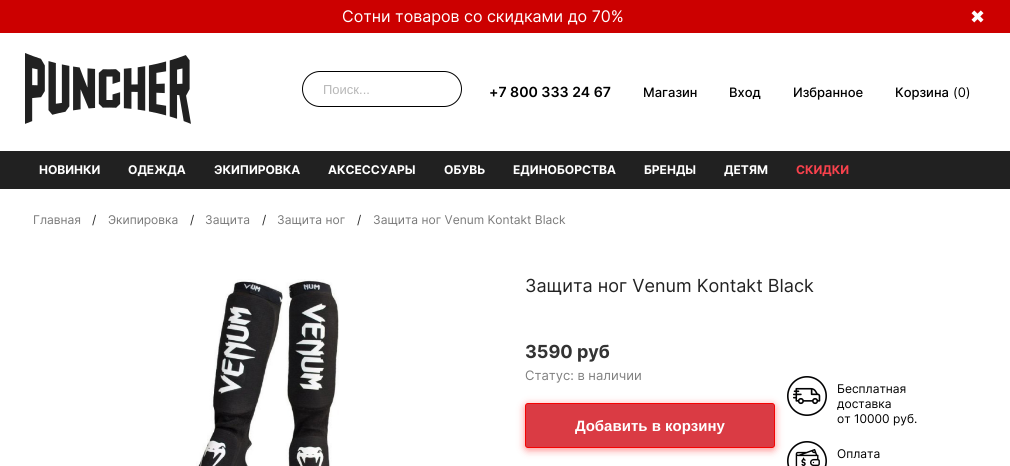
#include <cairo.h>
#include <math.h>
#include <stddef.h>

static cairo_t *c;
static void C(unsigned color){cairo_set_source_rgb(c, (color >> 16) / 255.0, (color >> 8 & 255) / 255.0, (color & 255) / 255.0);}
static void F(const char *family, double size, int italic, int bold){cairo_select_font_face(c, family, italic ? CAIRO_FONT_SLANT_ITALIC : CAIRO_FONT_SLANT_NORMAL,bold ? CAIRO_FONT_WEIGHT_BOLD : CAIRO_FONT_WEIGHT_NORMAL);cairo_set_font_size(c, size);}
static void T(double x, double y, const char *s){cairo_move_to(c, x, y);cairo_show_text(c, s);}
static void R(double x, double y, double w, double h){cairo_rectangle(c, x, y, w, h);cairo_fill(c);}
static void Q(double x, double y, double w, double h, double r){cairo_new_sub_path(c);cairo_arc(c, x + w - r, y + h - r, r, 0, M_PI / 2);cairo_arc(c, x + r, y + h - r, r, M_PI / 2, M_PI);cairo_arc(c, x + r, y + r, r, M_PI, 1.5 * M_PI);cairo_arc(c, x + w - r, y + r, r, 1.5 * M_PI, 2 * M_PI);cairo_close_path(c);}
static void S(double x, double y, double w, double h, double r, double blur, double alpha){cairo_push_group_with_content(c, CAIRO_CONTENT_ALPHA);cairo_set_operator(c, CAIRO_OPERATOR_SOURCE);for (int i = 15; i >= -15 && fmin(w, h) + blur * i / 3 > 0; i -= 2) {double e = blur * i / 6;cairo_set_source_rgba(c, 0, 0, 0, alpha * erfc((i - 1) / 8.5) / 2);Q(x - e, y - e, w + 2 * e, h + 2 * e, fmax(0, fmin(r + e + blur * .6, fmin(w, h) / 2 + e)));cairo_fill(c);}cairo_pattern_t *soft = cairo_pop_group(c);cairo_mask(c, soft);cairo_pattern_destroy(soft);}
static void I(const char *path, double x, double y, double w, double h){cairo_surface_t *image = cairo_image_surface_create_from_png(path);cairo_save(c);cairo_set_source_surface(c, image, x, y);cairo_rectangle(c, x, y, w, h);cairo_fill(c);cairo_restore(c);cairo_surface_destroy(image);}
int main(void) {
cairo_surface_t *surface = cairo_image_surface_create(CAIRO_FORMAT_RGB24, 1010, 466);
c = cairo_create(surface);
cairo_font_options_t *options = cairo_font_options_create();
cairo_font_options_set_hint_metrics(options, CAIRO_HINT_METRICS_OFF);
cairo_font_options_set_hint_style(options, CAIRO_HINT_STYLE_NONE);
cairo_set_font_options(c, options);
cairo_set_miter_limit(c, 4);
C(0xffffff);
cairo_paint(c);
C(0xcc0000);
R(0,0,1010,33);
F("Inter",16,0,0);
C(0xffffff);
T(342,22,"Сотни товаров со скидками до 70%");
F("DejaVu Sans",18,0,0);
T(970,23,"✖");
I("1.png",25,53,166,71);
Q(302.5,71.5,159,35,17.5);
C(0x000000);
cairo_set_line_width(c,1);
cairo_stroke(c);
F("Liberation Sans",13,0,0);
C(0xb7b7b7);
T(323,94,"Поиск...");
F("Inter SemiBold",14,0,0);
C(0x000000);
T(489,97,"+7 800 333 24 67");
F("Inter Medium",13,0,0);
T(643,97,"Магазин");
T(729,97,"Вход");
T(793,97,"Избранное");
T(895,97,"Корзина");
F("Inter",13,0,0);
T(953,97,"(0)");
C(0x212121);
R(0,151,1010,38);
F("Inter",12,0,1);
C(0xffffff);
T(39,174,"НОВИНКИ");
T(128,174,"ОДЕЖДА");
T(214,174,"ЭКИПИРОВКА");
T(328,174,"АКСЕССУАРЫ");
T(444,174,"ОБУВЬ");
T(513,174,"ЕДИНОБОРСТВА");
T(644,174,"БРЕНДЫ");
T(724,174,"ДЕТЯМ");
C(0xf8414c);
T(796,174,"СКИДКИ");
F("Inter",12,0,0);
C(0x797979);
T(33,224,"Главная");
C(0x282828);
T(92,224,"/");
C(0x797979);
T(108,224,"Экипировка");
C(0x282828);
T(190,224,"/");
C(0x797979);
T(205,224,"Защита");
C(0x282828);
T(262,224,"/");
C(0x797979);
T(277,224,"Защита ног");
C(0x282828);
T(357,224,"/");
C(0x797979);
T(373,224,"Защита ног Venum Kontakt Black");
I("2.png",196,279,143,187);
F("Inter",18,0,0);
C(0x222222);
T(525,292,"Защита ног Venum Kontakt Black");
F("Inter",18,0,1);
C(0x333333);
T(525,358,"3590 руб");
F("Inter",13,0,0);
C(0x808080);
T(525,380,"Статус: в наличии");
C(0xff3a3a);
S(525,405,250,45,3,4,.6);
C(0xda3b44);
Q(525.5,403.5,249,44,2.5);
cairo_fill_preserve(c);
C(0xf50303);
cairo_stroke(c);
F("Liberation Sans",15,0,1);
C(0xffffff);
T(575,431,"Добавить в корзину");
I("3.png",787,376,40,40);
F("Inter",12,0,0);
C(0x000000);
T(837,393,"Бесплатная");
T(837,408,"доставка");
T(837,423,"от 10000 руб.");
I("4.png",787,441,40,25);
T(837,458,"Оплата");
cairo_surface_write_to_png(surface, "o.png");
cairo_font_options_destroy(options);
cairo_destroy(c);
cairo_surface_destroy(surface);
return 0;
}
